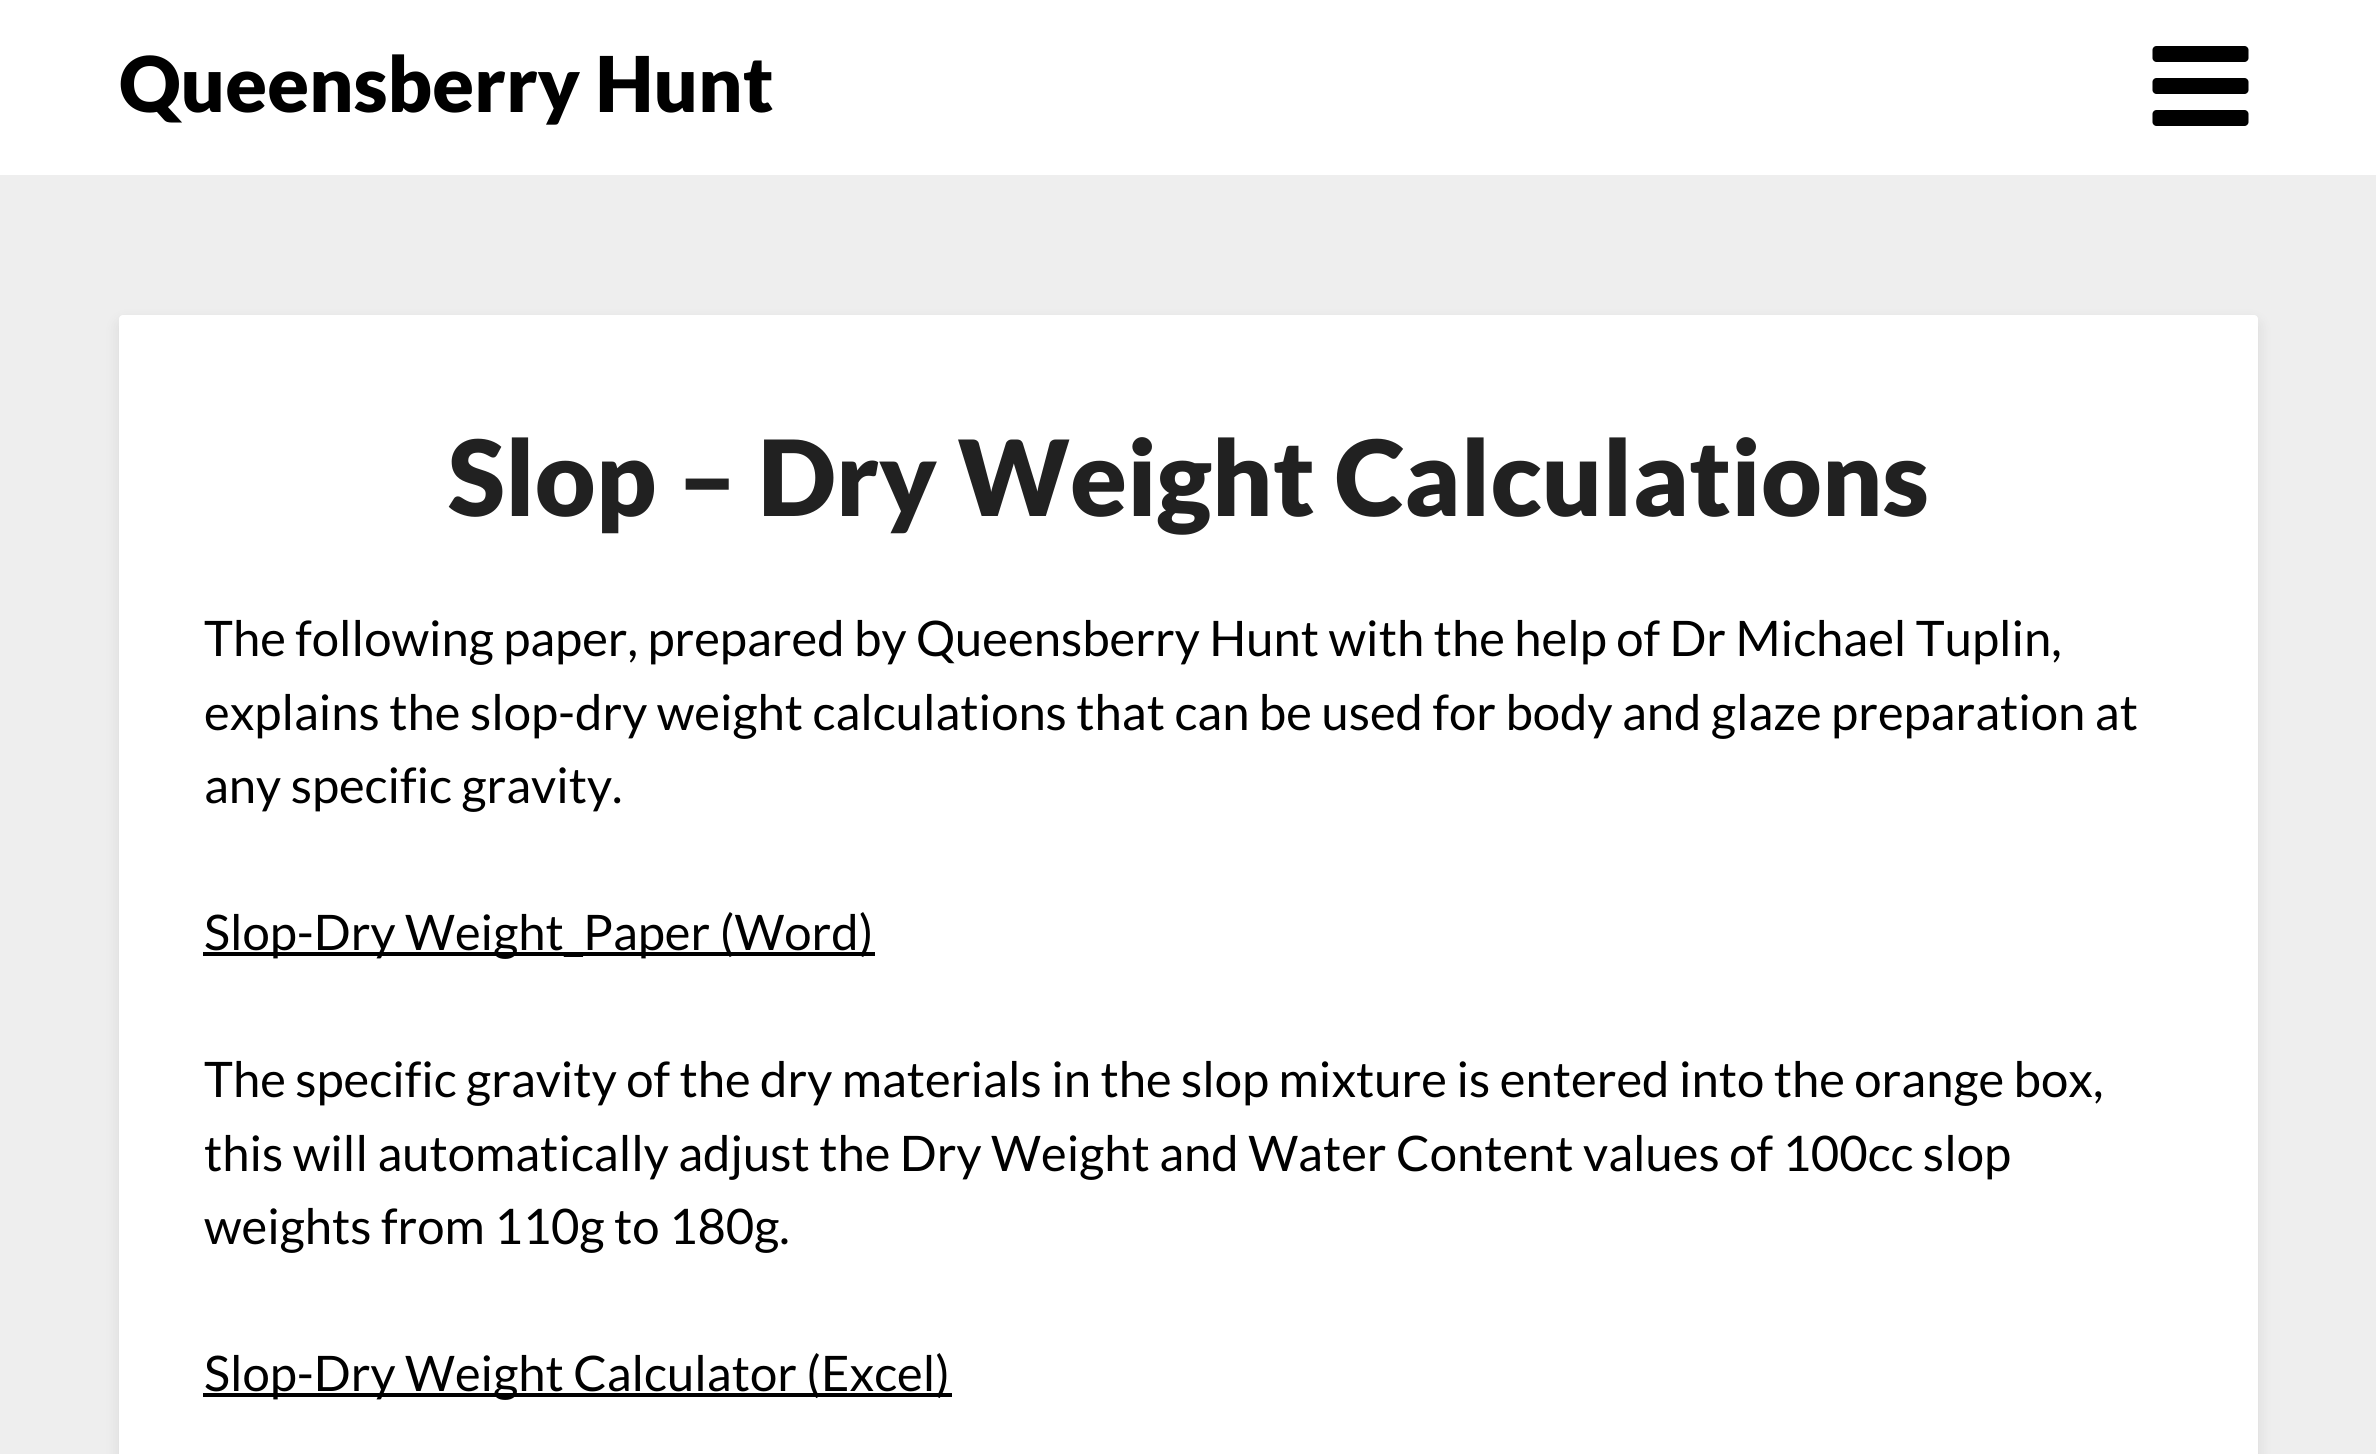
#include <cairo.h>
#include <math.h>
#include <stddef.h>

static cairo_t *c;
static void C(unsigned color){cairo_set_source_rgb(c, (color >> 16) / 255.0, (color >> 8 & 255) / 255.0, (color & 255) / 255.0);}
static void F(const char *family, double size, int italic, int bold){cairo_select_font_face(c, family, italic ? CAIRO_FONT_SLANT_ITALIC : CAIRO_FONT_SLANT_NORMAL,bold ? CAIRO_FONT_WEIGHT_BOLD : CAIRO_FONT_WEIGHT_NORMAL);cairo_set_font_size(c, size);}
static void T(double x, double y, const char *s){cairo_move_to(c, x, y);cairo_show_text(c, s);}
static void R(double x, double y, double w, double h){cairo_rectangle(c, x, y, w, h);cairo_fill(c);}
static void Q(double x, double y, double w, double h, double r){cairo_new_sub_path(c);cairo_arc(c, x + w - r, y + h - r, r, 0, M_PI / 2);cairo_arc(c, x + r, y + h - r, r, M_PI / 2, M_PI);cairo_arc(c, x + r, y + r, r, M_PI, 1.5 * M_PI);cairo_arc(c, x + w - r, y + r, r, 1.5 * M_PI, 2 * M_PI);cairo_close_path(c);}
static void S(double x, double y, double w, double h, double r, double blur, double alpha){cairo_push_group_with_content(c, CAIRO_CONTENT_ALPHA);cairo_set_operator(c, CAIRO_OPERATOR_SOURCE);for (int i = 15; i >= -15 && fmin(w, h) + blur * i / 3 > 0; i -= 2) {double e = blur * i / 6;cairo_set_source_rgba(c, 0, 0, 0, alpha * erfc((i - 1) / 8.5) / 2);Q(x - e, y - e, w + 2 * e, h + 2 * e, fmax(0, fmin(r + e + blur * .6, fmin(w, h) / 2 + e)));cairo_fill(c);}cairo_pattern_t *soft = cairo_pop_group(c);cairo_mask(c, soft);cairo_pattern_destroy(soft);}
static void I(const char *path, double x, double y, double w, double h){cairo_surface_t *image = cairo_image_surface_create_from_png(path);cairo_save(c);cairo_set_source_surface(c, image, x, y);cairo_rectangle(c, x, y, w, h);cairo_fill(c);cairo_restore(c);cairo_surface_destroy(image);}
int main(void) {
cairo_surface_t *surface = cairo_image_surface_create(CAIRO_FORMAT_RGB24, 2376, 1454);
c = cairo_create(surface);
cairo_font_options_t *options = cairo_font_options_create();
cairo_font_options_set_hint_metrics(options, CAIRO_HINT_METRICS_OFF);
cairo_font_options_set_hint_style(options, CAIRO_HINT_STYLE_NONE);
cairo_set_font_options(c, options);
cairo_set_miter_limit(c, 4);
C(0xeeeeee);
cairo_paint(c);
C(0xffffff);
R(0,0,2376,175);
F("Lato Black",77,0,0);
C(0x000000);
T(119,112,"Queensberry Hunt");
I("1.png",2152,46,97,80);
C(0x000000);
S(119,322,2139,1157,4,7,.1);
C(0xffffff);
Q(119,315,2139,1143,4);
cairo_fill(c);
F("Lato Black",105,0,0);
C(0x212121);
T(448,516,"Slop – Dry Weight Calculations");
F("Lato",49,0,0);
C(0x000000);
T(204,656,"The following paper, prepared by Queensberry Hunt with the help of Dr Michael Tuplin,");
T(204,730,"explains the slop-dry weight calculations that can be used for body and glaze preparation at");
T(204,803,"any specific gravity.");
R(203,952,672,4);
T(204,950,"Slop-Dry Weight_Paper (Word)");
T(204,1097,"The specific gravity of the dry materials in the slop mixture is entered into the orange box,");
T(204,1171,"this will automatically adjust the Dry Weight and Water Content values of 100cc slop");
T(204,1244,"weights from 110g to 180g.");
R(203,1393,749,4);
T(204,1391,"Slop-Dry Weight Calculator (Excel)");
cairo_surface_write_to_png(surface, "o.png");
cairo_font_options_destroy(options);
cairo_destroy(c);
cairo_surface_destroy(surface);
return 0;
}
